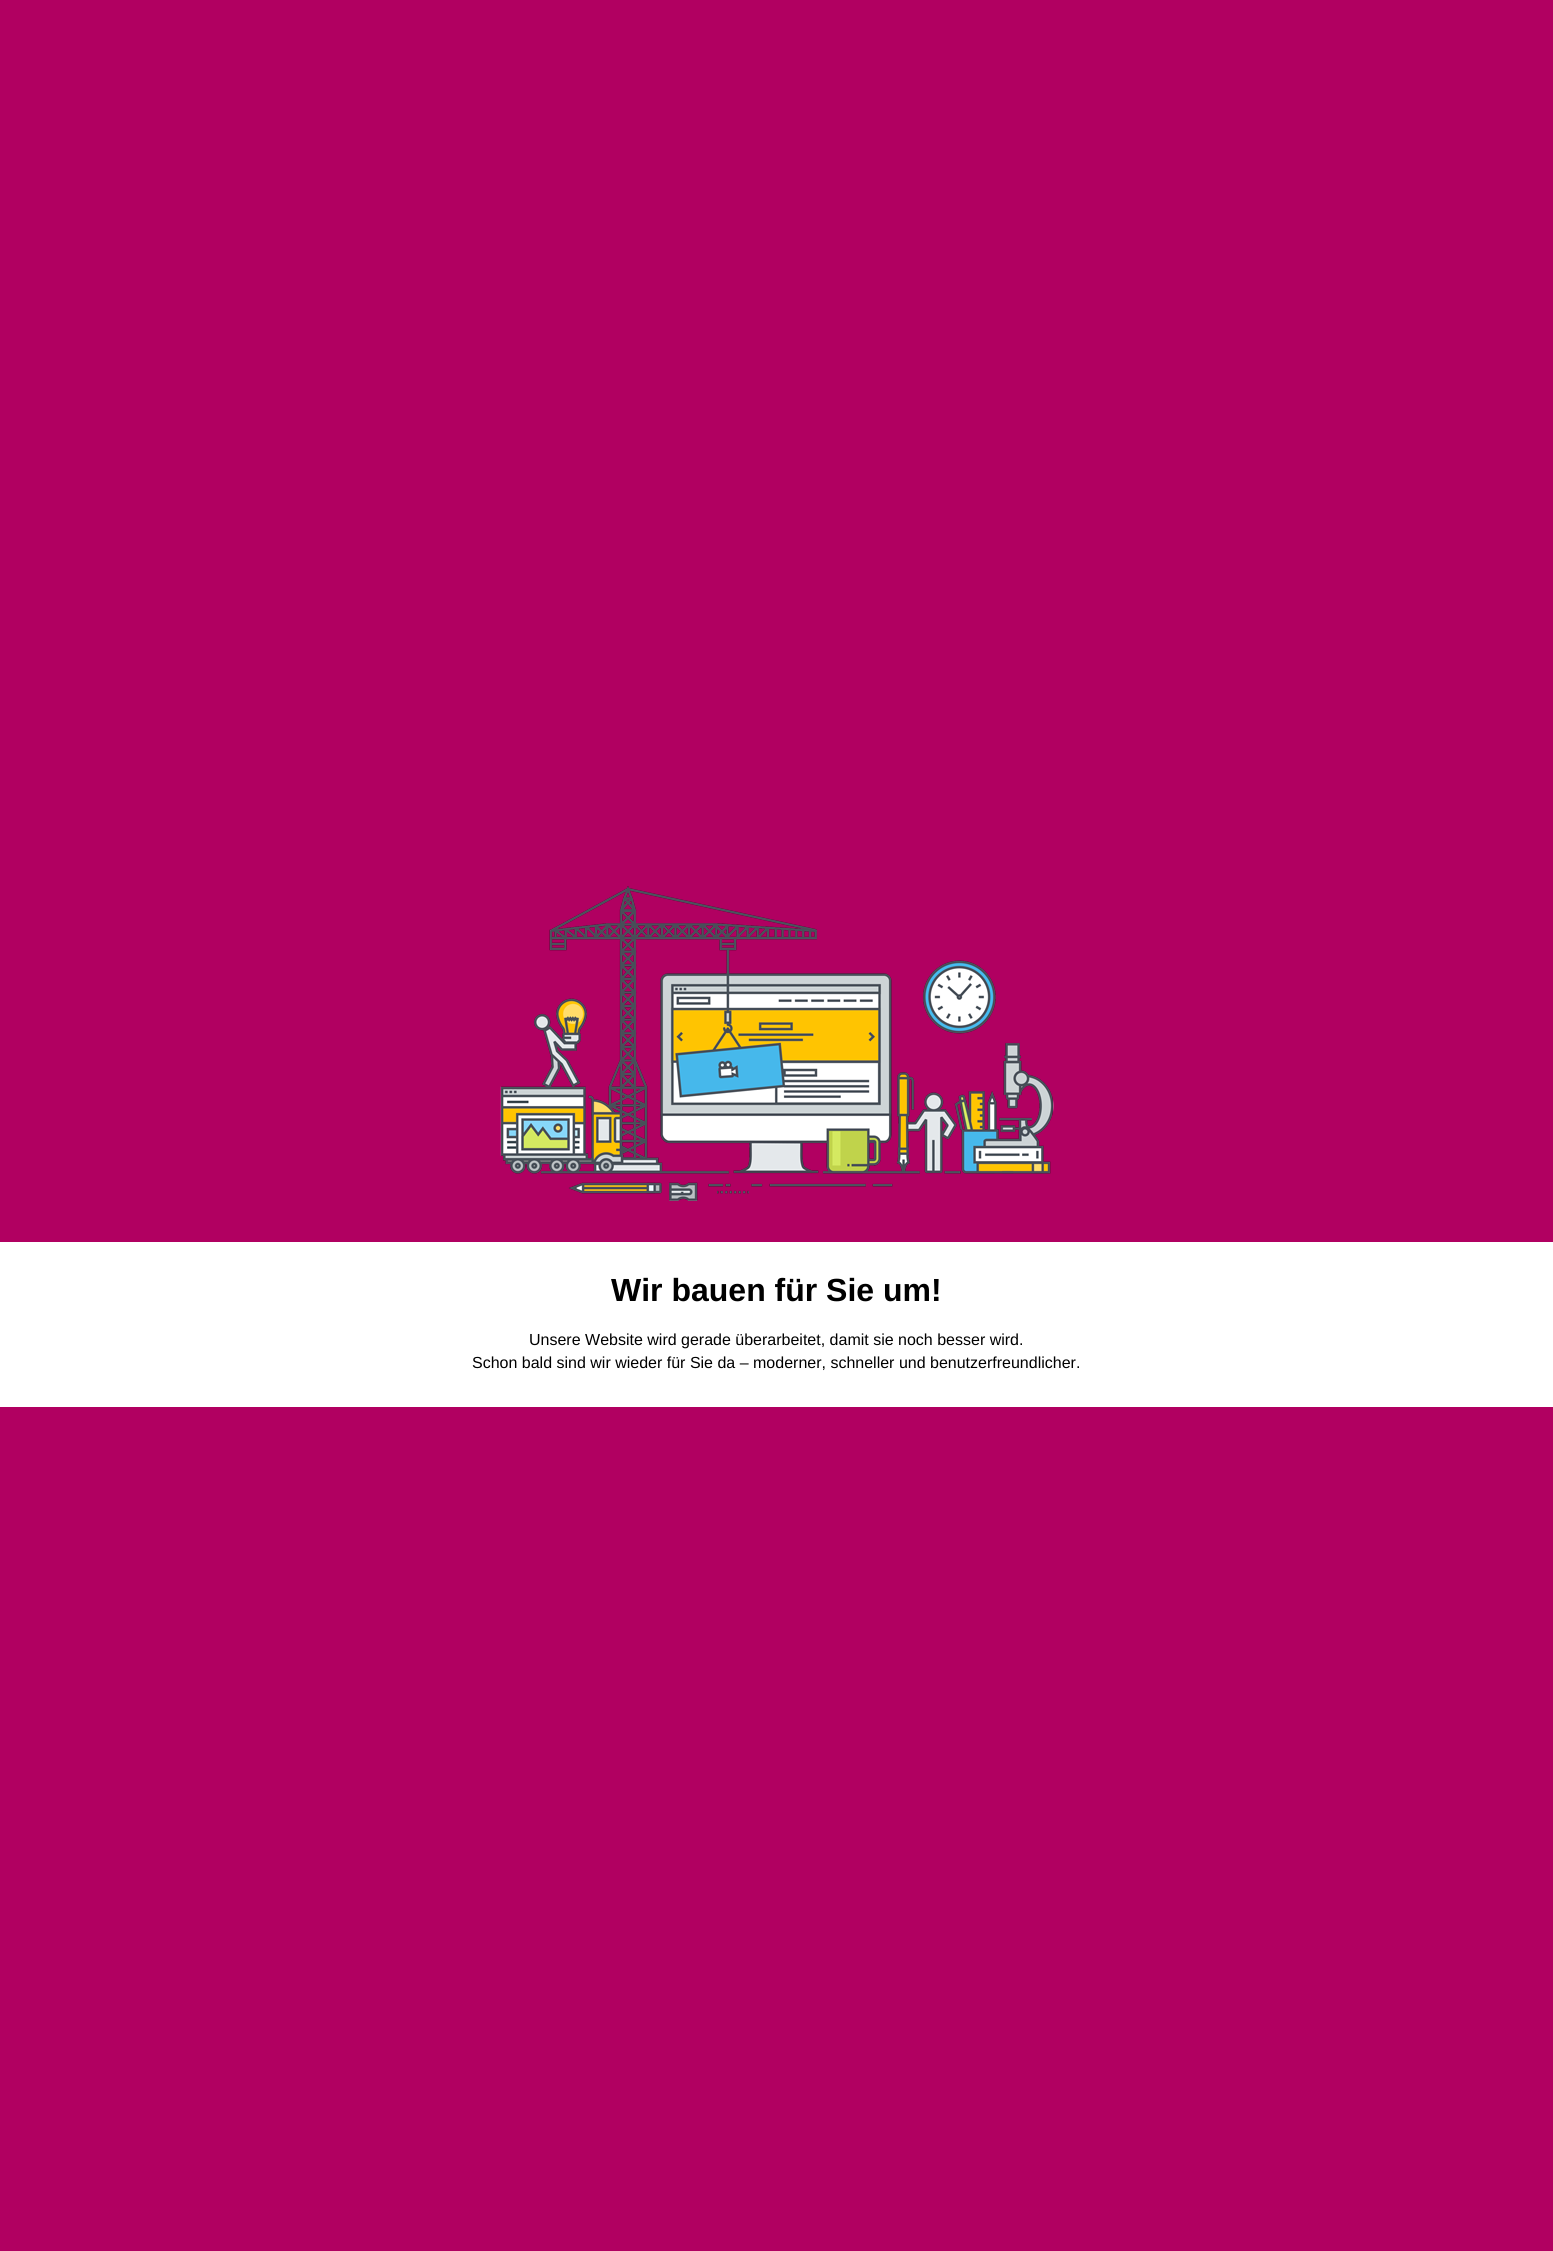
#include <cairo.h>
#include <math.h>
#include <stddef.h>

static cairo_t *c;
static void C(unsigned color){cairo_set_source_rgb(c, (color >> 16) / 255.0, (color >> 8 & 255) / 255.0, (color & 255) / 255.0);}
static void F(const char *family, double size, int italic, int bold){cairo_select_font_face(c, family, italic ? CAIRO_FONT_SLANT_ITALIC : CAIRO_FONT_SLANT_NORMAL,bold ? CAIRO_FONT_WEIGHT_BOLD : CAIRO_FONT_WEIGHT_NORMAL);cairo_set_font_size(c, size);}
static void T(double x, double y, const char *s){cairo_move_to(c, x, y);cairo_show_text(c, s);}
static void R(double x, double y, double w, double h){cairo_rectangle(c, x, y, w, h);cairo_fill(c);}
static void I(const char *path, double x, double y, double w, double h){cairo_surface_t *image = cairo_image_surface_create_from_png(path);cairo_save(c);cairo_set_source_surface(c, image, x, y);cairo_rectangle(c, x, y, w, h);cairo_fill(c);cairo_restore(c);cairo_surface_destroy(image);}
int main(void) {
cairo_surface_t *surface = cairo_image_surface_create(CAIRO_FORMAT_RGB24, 1553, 2251);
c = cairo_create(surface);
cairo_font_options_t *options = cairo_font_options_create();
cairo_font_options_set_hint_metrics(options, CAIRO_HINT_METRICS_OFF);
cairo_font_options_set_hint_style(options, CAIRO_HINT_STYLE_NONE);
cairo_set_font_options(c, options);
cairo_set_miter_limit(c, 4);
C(0xb10061);
cairo_paint(c);
I("1.png",500,886,554,315);
C(0xffffff);
R(0,1242,1553,165);
F("Liberation Sans",32,0,1);
C(0x000000);
T(611,1301,"Wir bauen für Sie um!");
F("Liberation Sans",16,0,0);
T(529,1345,"Unsere Website wird gerade überarbeitet, damit sie noch besser wird.");
T(472,1368,"Schon bald sind wir wieder für Sie da – moderner, schneller und benutzerfreundlicher.");
cairo_surface_write_to_png(surface, "o.png");
cairo_font_options_destroy(options);
cairo_destroy(c);
cairo_surface_destroy(surface);
return 0;
}
